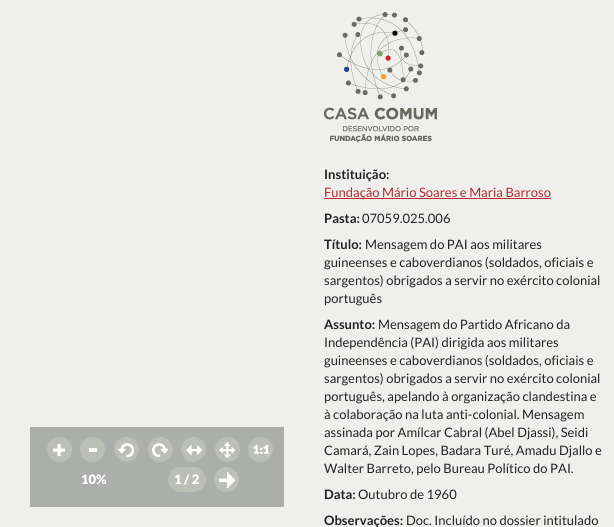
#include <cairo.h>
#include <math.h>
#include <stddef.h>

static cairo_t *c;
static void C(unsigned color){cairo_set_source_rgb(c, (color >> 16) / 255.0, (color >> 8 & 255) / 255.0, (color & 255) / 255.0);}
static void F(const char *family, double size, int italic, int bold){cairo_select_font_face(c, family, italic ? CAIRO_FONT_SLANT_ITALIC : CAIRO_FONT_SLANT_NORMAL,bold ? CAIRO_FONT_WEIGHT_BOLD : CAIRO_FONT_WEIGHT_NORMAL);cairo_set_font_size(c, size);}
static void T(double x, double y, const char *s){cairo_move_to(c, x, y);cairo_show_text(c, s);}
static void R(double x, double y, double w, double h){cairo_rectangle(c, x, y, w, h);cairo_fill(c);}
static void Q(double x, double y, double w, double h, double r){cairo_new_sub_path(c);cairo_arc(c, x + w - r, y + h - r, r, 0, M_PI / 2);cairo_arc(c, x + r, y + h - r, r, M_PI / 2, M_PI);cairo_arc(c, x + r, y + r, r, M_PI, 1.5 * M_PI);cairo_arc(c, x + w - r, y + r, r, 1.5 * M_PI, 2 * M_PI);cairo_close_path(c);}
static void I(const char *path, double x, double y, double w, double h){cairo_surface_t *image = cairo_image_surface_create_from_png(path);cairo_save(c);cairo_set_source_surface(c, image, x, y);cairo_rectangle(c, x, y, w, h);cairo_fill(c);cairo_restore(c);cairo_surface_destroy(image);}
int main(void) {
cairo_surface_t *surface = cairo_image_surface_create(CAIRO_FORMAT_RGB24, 614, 527);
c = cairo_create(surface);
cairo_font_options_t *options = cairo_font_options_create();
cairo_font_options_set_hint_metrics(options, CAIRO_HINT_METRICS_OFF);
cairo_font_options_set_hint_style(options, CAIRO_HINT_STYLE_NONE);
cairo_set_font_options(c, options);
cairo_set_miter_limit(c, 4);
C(0xeff0ee);
cairo_paint(c);
C(0xacaeac);
R(30,427,254,80);
C(0xbcbeb8);
cairo_arc(c,59.5,449.5,12.5,0,2 * M_PI);
cairo_fill(c);
I("1.png",53,444,12,12);
cairo_arc(c,92.5,449.5,12.5,0,2 * M_PI);
cairo_fill(c);
C(0xffffff);
R(89,448,8,4);
C(0xbcbeb8);
cairo_arc(c,126.5,449.5,12.5,0,2 * M_PI);
cairo_fill(c);
I("2.png",118,443,16,14);
cairo_arc(c,160.5,449.5,12.5,0,2 * M_PI);
cairo_fill(c);
I("3.png",152,443,16,14);
cairo_arc(c,193.5,449.5,12.5,0,2 * M_PI);
cairo_fill(c);
I("4.png",186,445,16,10);
cairo_arc(c,227.5,449.5,12.5,0,2 * M_PI);
cairo_fill(c);
I("5.png",219,442,16,16);
cairo_arc(c,260.5,449.5,12.5,0,2 * M_PI);
cairo_fill(c);
I("6.png",253,445,16,9);
F("Lato Black",13,0,0);
C(0xffffff);
T(81,484,"10%");
C(0xbcbeb8);
Q(168,467,38,25,12.5);
cairo_fill(c);
C(0xffffff);
T(174,484,"1 / 2");
C(0xbcbeb8);
cairo_new_path(c);
cairo_arc(c,226.5,479.5,12.5,0,2 * M_PI);
cairo_fill(c);
I("7.png",219,472,16,16);
I("8.png",324,12,113,131);
F("Lato",13,0,1);
C(0x222222);
T(324,179,"Instituição:");
C(0xb8292f);
R(324,198,227,1);
F("Lato",13,0,0);
T(324,197,"Fundação Mário Soares e Maria Barroso");
F("Lato",13,0,1);
C(0x222222);
T(324,223,"Pasta:");
F("Lato",13,0,0);
T(362,223,"07059.025.006");
F("Lato",13,0,1);
T(324,249,"Título:");
F("Lato",13,0,0);
T(365,249,"Mensagem do PAI aos militares");
T(324,267,"guineenses e caboverdianos (soldados, oficiais e");
T(324,285,"sargentos) obrigados a servir no exército colonial");
T(324,303,"português");
F("Lato",13,0,1);
T(324,329,"Assunto:");
F("Lato",13,0,0);
T(378,329,"Mensagem do Partido Africano da");
T(324,347,"Independência (PAI) dirigida aos militares");
T(324,365,"guineenses e caboverdianos (soldados, oficiais e");
T(324,383,"sargentos) obrigados a servir no exército colonial");
T(324,401,"português, apelando à organização clandestina e");
T(324,419,"à colaboração na luta anti-colonial. Mensagem");
T(324,437,"assinada por Amílcar Cabral (Abel Djassi), Seidi");
T(324,455,"Camará, Zain Lopes, Badara Turé, Amadu Djallo e");
T(324,473,"Walter Barreto, pelo Bureau Político do PAI.");
F("Lato",13,0,1);
T(324,499,"Data:");
F("Lato",13,0,0);
T(358,499,"Outubro de 1960");
F("Lato",13,0,1);
T(324,525,"Observações:");
F("Lato",13,0,0);
T(406,525,"Doc. Incluído no dossier intitulado");
cairo_surface_write_to_png(surface, "o.png");
cairo_font_options_destroy(options);
cairo_destroy(c);
cairo_surface_destroy(surface);
return 0;
}
